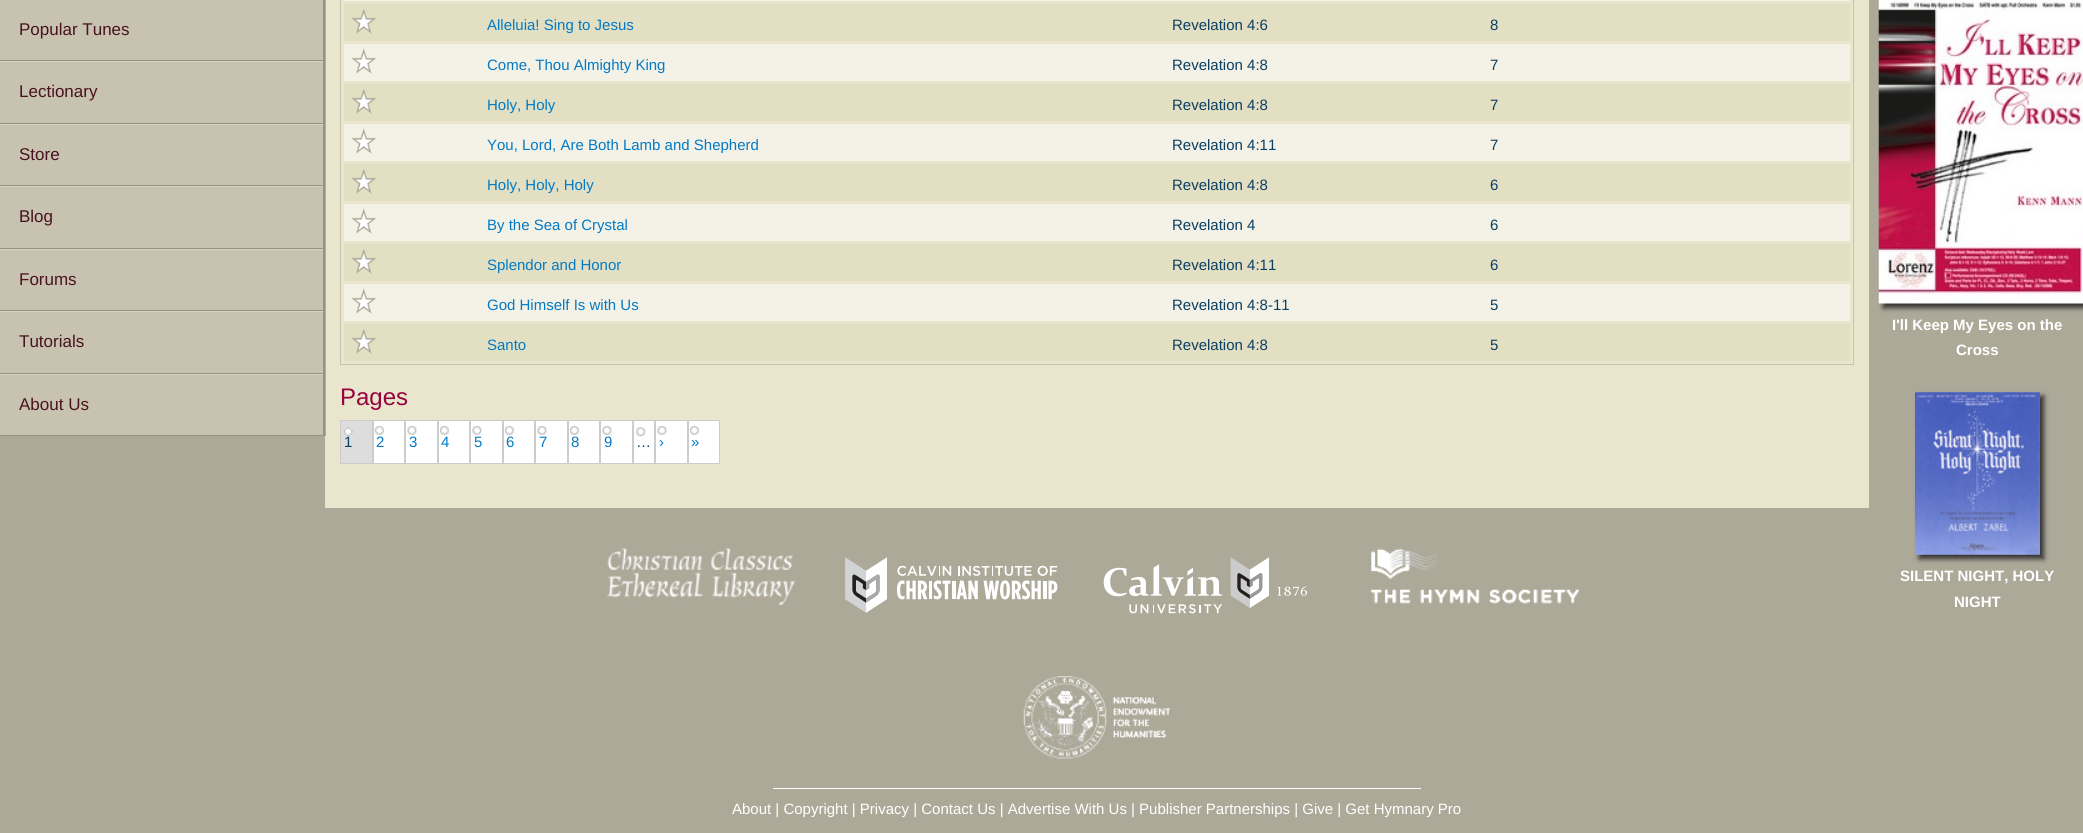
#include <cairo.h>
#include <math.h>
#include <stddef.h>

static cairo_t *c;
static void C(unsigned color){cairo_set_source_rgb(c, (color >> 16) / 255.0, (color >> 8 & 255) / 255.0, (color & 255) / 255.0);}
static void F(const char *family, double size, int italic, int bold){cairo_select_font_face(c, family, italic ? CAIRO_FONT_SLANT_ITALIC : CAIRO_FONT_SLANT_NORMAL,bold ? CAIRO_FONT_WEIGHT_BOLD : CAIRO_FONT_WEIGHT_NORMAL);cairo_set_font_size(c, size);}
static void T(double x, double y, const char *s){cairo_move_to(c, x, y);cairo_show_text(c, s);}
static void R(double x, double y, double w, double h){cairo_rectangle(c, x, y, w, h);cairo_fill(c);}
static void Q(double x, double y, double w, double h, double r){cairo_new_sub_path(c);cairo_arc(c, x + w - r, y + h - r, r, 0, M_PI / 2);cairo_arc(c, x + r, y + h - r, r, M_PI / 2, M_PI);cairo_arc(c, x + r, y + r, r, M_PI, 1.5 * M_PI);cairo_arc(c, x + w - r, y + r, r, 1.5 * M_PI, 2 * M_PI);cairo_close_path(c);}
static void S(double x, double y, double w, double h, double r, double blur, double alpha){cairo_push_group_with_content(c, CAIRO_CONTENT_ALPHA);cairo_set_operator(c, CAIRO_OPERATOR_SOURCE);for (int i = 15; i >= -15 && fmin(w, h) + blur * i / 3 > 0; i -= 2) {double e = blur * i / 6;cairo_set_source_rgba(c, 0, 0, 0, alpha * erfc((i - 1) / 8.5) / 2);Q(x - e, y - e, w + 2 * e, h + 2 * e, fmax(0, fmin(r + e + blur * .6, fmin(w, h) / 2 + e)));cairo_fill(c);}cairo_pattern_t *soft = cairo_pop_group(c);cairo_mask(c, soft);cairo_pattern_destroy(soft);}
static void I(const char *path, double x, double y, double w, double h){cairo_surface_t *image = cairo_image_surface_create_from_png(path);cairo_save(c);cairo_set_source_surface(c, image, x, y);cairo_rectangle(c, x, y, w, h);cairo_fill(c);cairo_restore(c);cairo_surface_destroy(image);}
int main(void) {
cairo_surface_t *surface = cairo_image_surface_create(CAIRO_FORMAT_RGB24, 2083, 833);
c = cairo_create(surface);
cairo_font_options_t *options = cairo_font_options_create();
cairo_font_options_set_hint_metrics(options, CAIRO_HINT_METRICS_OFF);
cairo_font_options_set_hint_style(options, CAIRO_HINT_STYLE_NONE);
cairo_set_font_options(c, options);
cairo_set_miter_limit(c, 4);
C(0xada999);
cairo_paint(c);
C(0xc8c3b0);
R(0,0,323,435);
C(0x969284);
R(323,0,2,436);
R(0,60,323,1);
F("Liberation Sans",17,0,0);
C(0x49121f);
T(19,35,"Popular Tunes");
C(0xd6d2c4);
R(0,61,323,1);
C(0x969284);
R(0,123,323,1);
C(0x49121f);
T(19,97,"Lectionary");
C(0xd6d2c4);
R(0,124,323,1);
C(0x969284);
R(0,185,323,1);
C(0x49121f);
T(19,160,"Store");
C(0xd6d2c4);
R(0,186,323,1);
C(0x969284);
R(0,248,323,1);
C(0x49121f);
T(19,222,"Blog");
C(0xd6d2c4);
R(0,249,323,1);
C(0x969284);
R(0,310,323,1);
C(0x49121f);
T(19,285,"Forums");
C(0xd6d2c4);
R(0,311,323,1);
C(0x969284);
R(0,373,323,1);
C(0x49121f);
T(19,347,"Tutorials");
C(0xd6d2c4);
R(0,374,323,1);
C(0x969284);
R(0,435,323,1);
C(0x49121f);
T(19,410,"About Us");
C(0xe9e6cd);
R(325,0,1544,508);
C(0xafad9a);
R(325,0,1,436);
C(0xc8c3b0);
R(1853,0,1,365);
R(340,364,1514,1);
R(340,0,1,365);
C(0xf4f2e6);
R(344,0,1506,1);
C(0xe2dfc3);
R(344,4,1506,37);
I("1.png",351,9,25,25);
F("Liberation Sans",15,0,0);
C(0x027ac6);
T(487,30,"Alleluia! Sing to Jesus");
C(0x0a3f64);
T(1172,30,"Revelation 4:6");
T(1490,30,"8");
C(0xf4f2e6);
R(344,44,1506,37);
I("2.png",351,48,25,26);
C(0x027ac6);
T(487,70,"Come, Thou Almighty King");
C(0x0a3f64);
T(1172,70,"Revelation 4:8");
T(1490,70,"7");
C(0xe2dfc3);
R(344,84,1506,37);
I("1.png",351,89,25,25);
C(0x027ac6);
T(487,110,"Holy, Holy");
C(0x0a3f64);
T(1172,110,"Revelation 4:8");
T(1490,110,"7");
C(0xf4f2e6);
R(344,124,1506,37);
I("2.png",351,128,25,26);
C(0x027ac6);
T(487,150,"You, Lord, Are Both Lamb and Shepherd");
C(0x0a3f64);
T(1172,150,"Revelation 4:11");
T(1490,150,"7");
C(0xe2dfc3);
R(344,164,1506,37);
I("1.png",351,169,25,25);
C(0x027ac6);
T(487,190,"Holy, Holy, Holy");
C(0x0a3f64);
T(1172,190,"Revelation 4:8");
T(1490,190,"6");
C(0xf4f2e6);
R(344,204,1506,37);
I("2.png",351,208,25,26);
C(0x027ac6);
T(487,230,"By the Sea of Crystal");
C(0x0a3f64);
T(1172,230,"Revelation 4");
T(1490,230,"6");
C(0xe2dfc3);
R(344,244,1506,37);
I("1.png",351,249,25,25);
C(0x027ac6);
T(487,270,"Splendor and Honor");
C(0x0a3f64);
T(1172,270,"Revelation 4:11");
T(1490,270,"6");
C(0xf4f2e6);
R(344,284,1506,37);
I("2.png",351,288,25,26);
C(0x027ac6);
T(487,310,"God Himself Is with Us");
C(0x0a3f64);
T(1172,310,"Revelation 4:8-11");
T(1490,310,"5");
C(0xe2dfc3);
R(344,324,1506,37);
I("1.png",351,329,25,25);
C(0x027ac6);
T(487,350,"Santo");
C(0x0a3f64);
T(1172,350,"Revelation 4:8");
T(1490,350,"5");
F("Liberation Sans",24,0,0);
C(0x98023e);
T(340,405,"Pages");
C(0xdddddd);
R(341,421,31,42);
I("3.png",343,427,10,9);
cairo_rectangle(c,340.5,420.5,32,43);
C(0xcccccc);
cairo_set_line_width(c,1);
cairo_stroke(c);
F("Liberation Sans",15,0,0);
C(0x0a3f64);
T(344,447,"1");
C(0xffffff);
R(374,421,30,42);
I("4.png",375,426,9,9);
cairo_rectangle(c,373.5,420.5,31,43);
C(0xcccccc);
cairo_stroke(c);
C(0x027ac6);
T(376,447,"2");
C(0xffffff);
R(406,421,31,42);
I("5.png",407,426,10,9);
cairo_rectangle(c,405.5,420.5,32,43);
C(0xcccccc);
cairo_stroke(c);
C(0x027ac6);
T(409,447,"3");
C(0xffffff);
R(439,421,30,42);
I("6.png",440,426,9,9);
cairo_rectangle(c,438.5,420.5,31,43);
C(0xcccccc);
cairo_stroke(c);
C(0x027ac6);
T(441,447,"4");
C(0xffffff);
R(471,421,31,42);
I("5.png",472,426,10,9);
cairo_rectangle(c,470.5,420.5,32,43);
C(0xcccccc);
cairo_stroke(c);
C(0x027ac6);
T(474,447,"5");
C(0xffffff);
R(504,421,30,42);
I("6.png",505,426,9,9);
cairo_rectangle(c,503.5,420.5,31,43);
C(0xcccccc);
cairo_stroke(c);
C(0x027ac6);
T(506,447,"6");
C(0xffffff);
R(536,421,31,42);
I("5.png",537,426,10,9);
cairo_rectangle(c,535.5,420.5,32,43);
C(0xcccccc);
cairo_stroke(c);
C(0x027ac6);
T(539,447,"7");
C(0xffffff);
R(569,421,30,42);
I("4.png",570,426,9,9);
cairo_rectangle(c,568.5,420.5,31,43);
C(0xcccccc);
cairo_stroke(c);
C(0x027ac6);
T(571,447,"8");
C(0xffffff);
R(601,421,31,42);
I("5.png",602,426,10,9);
cairo_rectangle(c,600.5,420.5,32,43);
C(0xcccccc);
cairo_stroke(c);
C(0x027ac6);
T(604,447,"9");
C(0xffffff);
R(634,421,20,42);
I("7.png",636,427,10,10);
cairo_rectangle(c,633.5,420.5,21,43);
C(0xcccccc);
cairo_stroke(c);
C(0x0a3f64);
T(636,447,"…");
C(0xffffff);
R(656,421,31,42);
I("5.png",657,426,10,9);
cairo_rectangle(c,655.5,420.5,32,43);
C(0xcccccc);
cairo_stroke(c);
C(0x027ac6);
T(659,447,"›");
C(0xffffff);
R(689,421,30,42);
I("4.png",690,426,9,9);
cairo_rectangle(c,688.5,420.5,31,43);
C(0xcccccc);
cairo_stroke(c);
C(0x027ac6);
T(691,447,"»");
I("8.png",607,548,188,57);
I("9.png",845,557,213,56);
I("10.png",1103,557,204,57);
I("11.png",1371,548,208,56);
I("12.png",1023,676,147,83);
C(0xffffff);
R(773,788,648,1);
T(732,814,"About | Copyright | Privacy | Contact Us | Advertise With Us | Publisher Partnerships | Give | Get Hymnary Pro");
C(0x333333);
S(1883,-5,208,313,0,2.5,1);
I("13.png",1878,0,205,304);
F("Liberation Sans",15,0,1);
C(0xffffff);
T(1892,330,"I'll Keep My Eyes on the");
T(1956,355,"Cross");
C(0x333333);
S(1919,396,125,163,0,2.5,1);
I("14.png",1915,392,125,163);
C(0xffffff);
T(1900,581,"SILENT NIGHT, HOLY");
T(1954,607,"NIGHT");
cairo_surface_write_to_png(surface, "o.png");
cairo_font_options_destroy(options);
cairo_destroy(c);
cairo_surface_destroy(surface);
return 0;
}
